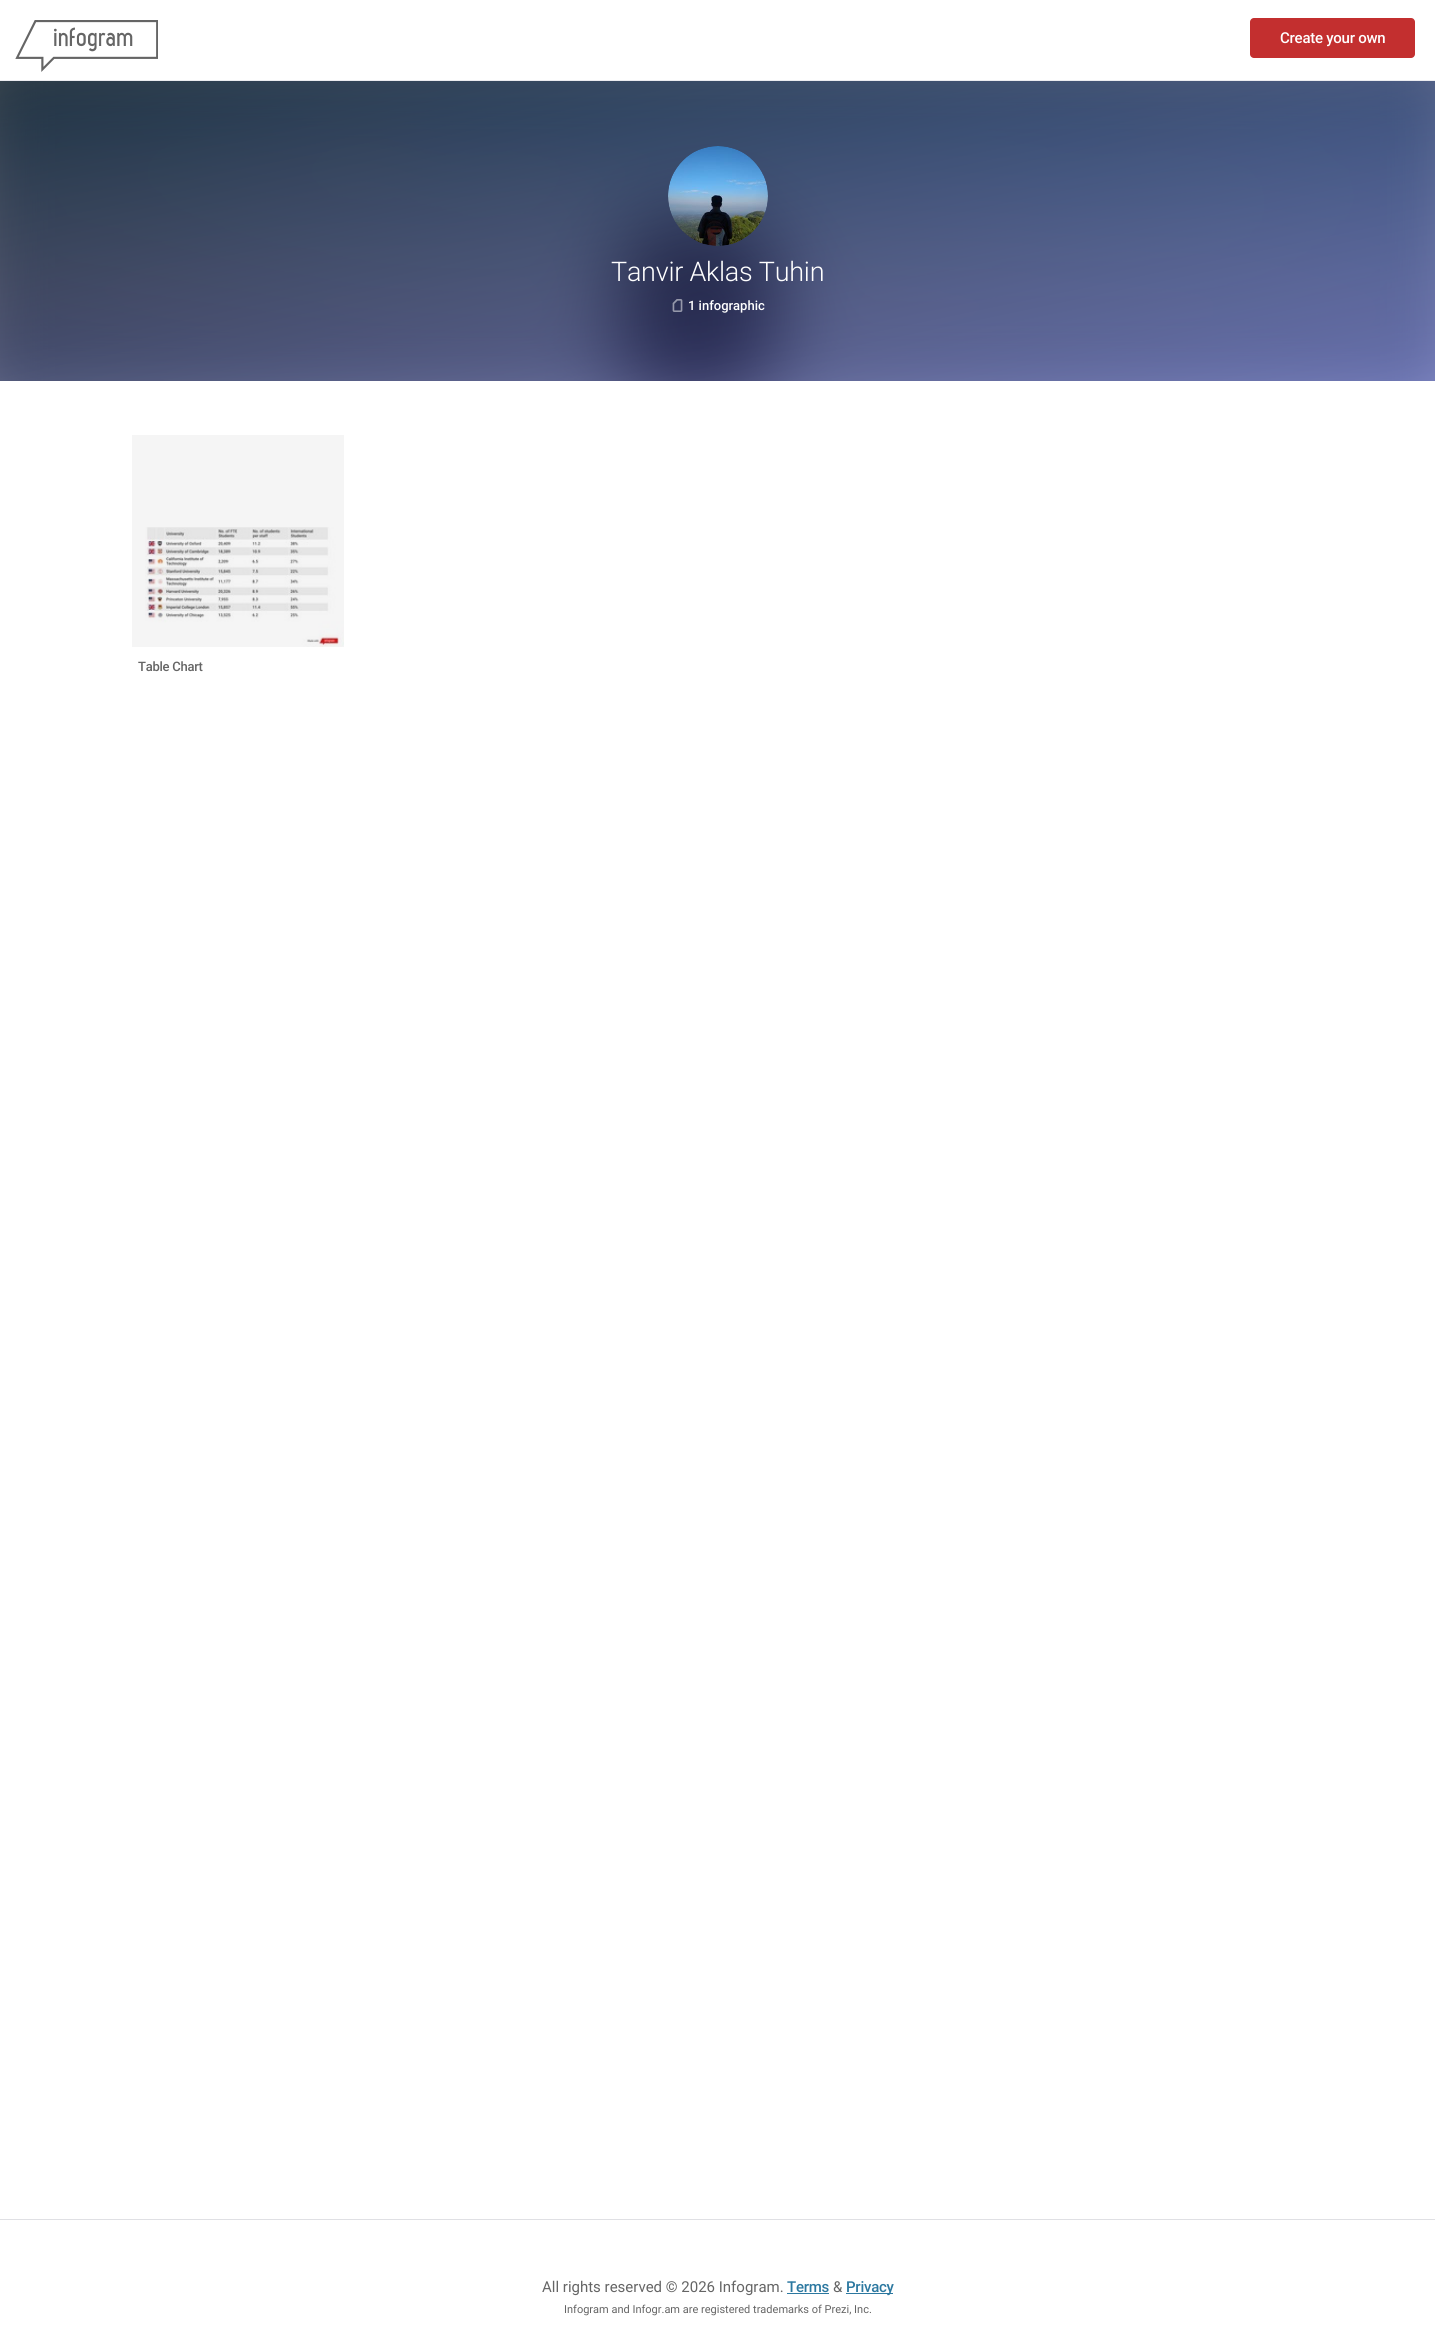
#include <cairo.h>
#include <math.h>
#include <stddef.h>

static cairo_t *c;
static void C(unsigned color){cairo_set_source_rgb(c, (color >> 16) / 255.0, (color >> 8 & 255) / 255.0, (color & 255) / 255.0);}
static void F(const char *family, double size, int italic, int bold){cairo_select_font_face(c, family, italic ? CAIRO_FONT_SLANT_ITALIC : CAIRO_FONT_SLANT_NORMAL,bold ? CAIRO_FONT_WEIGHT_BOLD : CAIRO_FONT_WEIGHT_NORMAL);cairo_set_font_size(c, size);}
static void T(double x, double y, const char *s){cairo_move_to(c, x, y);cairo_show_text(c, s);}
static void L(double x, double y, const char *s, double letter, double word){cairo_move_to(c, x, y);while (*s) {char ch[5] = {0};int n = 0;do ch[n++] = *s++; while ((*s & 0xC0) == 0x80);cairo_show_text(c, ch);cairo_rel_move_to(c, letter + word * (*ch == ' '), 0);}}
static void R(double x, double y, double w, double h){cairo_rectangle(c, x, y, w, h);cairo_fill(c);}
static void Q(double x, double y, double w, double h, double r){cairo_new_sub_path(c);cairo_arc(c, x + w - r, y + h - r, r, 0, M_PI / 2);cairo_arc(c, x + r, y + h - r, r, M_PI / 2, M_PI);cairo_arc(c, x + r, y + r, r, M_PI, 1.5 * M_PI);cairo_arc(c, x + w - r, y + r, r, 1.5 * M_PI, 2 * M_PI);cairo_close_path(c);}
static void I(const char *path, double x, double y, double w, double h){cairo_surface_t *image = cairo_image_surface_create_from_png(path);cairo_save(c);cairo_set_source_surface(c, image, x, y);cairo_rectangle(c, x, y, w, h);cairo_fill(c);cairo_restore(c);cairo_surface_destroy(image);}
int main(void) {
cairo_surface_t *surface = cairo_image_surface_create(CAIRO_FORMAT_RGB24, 1435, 2350);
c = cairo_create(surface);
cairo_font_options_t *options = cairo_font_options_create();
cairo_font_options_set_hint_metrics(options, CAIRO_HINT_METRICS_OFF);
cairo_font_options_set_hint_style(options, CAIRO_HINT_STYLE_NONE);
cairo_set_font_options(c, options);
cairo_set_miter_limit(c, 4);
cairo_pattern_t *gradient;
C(0xffffff);
cairo_paint(c);
C(0xececf0);
R(0,80,1435,1);
I("1.png",15,20,143,52);
C(0xc32f2f);
Q(1250,18,165,40,4);
cairo_fill(c);
F("Roboto Medium",15,0,0);
C(0xffffff);
L(1280,43,"Create your own",-.25,0);
I("2.png",0,81,1435,300);
gradient = cairo_pattern_create_linear(657,-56,778,518);
cairo_pattern_add_color_stop_rgba(gradient,0,0.004,0.004,0.004,.6);
cairo_pattern_add_color_stop_rgba(gradient,1,0.4,0.427,0.78,.6);
cairo_set_source(c,gradient);
cairo_pattern_destroy(gradient);
R(0,81,1435,300);
I("3.png",668,146,100,100);
F("Roboto Light",27,0,0);
C(0xffffff);
L(611,281,"Tanvir Aklas Tuhin",-.25,0);
I("4.png",672,299,11,13);
F("Roboto Medium",13,0,0);
T(688,310,"1 infographic");
I("5.png",145,527,199,120);
cairo_set_source_rgba(c,0,0,0,0.04);
R(132,435,212,212);
C(0x656565);
L(138,671,"Table Chart",-.25,0);
C(0xe0e0e4);
R(0,2219,1435,1);
F("Roboto",15,0,0);
C(0x656565);
T(542,2292,"All rights reserved © 2026 Infogram.");
F("Roboto Medium",15,0,0);
C(0x2c78a0);
L(787,2292,"Terms",-.25,0);
R(787,2293,42,1);
F("Roboto",15,0,0);
C(0x656565);
T(833,2292,"&");
C(0x2c78a0);
R(846,2293,47,1);
F("Roboto Medium",15,0,0);
L(846,2292,"Privacy",-.25,0);
F("Roboto",11,0,0);
C(0x656565);
T(564,2313,"Infogram and Infogr.am are registered trademarks of Prezi, Inc.");
cairo_surface_write_to_png(surface, "o.png");
cairo_font_options_destroy(options);
cairo_destroy(c);
cairo_surface_destroy(surface);
return 0;
}
